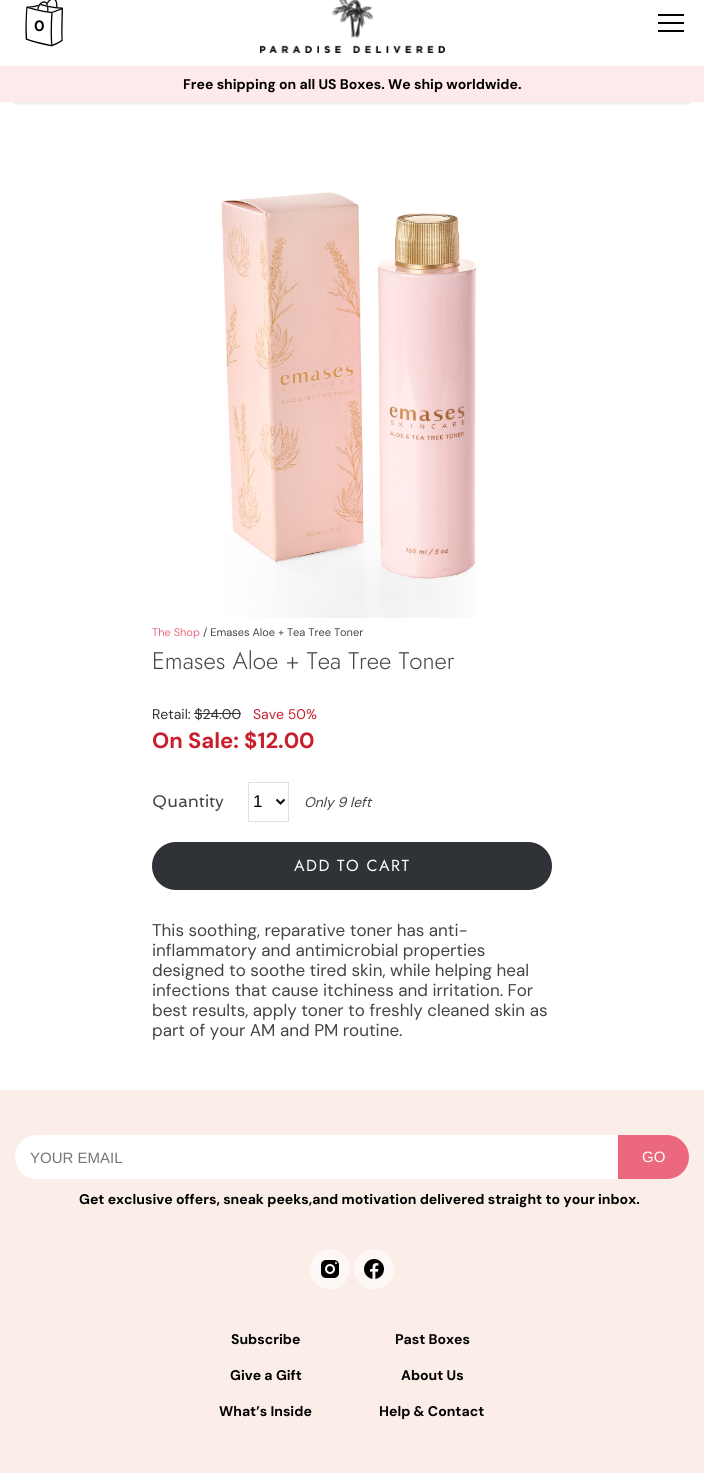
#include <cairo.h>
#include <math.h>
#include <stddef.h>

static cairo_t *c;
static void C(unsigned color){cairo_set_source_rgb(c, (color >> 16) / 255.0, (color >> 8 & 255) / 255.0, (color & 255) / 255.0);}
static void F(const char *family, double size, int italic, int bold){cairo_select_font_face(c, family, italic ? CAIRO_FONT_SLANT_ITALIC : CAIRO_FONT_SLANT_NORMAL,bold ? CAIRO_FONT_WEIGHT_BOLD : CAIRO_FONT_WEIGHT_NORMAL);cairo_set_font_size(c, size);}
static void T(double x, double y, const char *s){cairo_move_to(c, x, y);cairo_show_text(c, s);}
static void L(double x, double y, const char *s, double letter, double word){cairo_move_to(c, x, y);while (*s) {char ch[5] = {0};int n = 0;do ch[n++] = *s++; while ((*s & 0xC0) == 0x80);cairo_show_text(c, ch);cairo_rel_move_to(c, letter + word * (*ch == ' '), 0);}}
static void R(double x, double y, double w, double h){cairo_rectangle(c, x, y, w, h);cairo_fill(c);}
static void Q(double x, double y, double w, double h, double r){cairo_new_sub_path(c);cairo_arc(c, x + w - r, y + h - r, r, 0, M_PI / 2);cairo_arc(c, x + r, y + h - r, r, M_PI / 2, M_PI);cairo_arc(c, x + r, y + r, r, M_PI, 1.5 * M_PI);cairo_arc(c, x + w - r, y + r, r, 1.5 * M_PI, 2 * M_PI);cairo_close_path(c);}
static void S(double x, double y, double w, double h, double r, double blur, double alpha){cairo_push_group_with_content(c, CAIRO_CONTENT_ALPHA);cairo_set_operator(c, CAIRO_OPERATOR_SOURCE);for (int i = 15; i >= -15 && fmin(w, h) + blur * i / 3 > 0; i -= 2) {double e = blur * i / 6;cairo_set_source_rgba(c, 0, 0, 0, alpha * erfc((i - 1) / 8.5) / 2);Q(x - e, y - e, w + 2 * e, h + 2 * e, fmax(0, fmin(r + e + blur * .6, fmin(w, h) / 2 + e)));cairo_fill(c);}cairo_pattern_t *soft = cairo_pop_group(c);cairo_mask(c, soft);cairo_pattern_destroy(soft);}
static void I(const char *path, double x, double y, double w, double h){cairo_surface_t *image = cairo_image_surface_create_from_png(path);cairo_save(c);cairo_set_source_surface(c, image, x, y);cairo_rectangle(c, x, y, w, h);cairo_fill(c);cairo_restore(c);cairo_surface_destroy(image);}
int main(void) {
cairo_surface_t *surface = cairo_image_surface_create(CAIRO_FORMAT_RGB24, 704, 1473);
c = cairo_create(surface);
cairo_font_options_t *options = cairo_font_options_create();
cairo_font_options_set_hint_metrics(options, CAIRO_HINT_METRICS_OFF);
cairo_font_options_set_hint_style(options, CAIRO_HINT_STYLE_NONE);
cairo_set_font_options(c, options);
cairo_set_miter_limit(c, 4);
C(0xffffff);
cairo_paint(c);
cairo_save(c);
cairo_rectangle(c,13,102,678,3);
cairo_clip(c);
C(0x000000);
S(15,10,674,92,0,2.5,.2);
cairo_restore(c);
F("DM Sans",15,0,1);
C(0x000000);
T(34,31,"0");
I("1.png",25,0,38,47);
I("2.png",260,0,185,53);
R(658,14,26,2);
R(658,22,26,2);
R(658,30,26,2);
C(0xffeaeb);
R(0,66,704,36);
F("DM Sans",14,0,1);
C(0x000000);
T(183,89,"Free shipping on all US Boxes. We ship worldwide.");
I("3.png",221,192,255,426);
F("DM Sans",11,0,0);
C(0xec687e);
T(152,636,"The Shop");
C(0x444444);
T(203,636,"/ Emases Aloe + Tea Tree Toner");
F("Jost Light",24,0,0);
T(152,669,"Emases Aloe + Tea Tree Toner");
F("DM Sans",14,0,0);
C(0x2f3337);
T(152,719,"Retail: $24.00");
R(194,713,47,1);
C(0xc7202c);
T(253,719,"Save 50%");
F("DM Sans",22,0,1);
T(152,748,"On Sale: $12.00");
F("Spinnaker",17,0,0);
C(0x444444);
T(152,807,"Quantity");
cairo_rectangle(c,248.5,782.5,40,39);
C(0xe0e0e0);
cairo_set_line_width(c,1);
cairo_stroke(c);
cairo_new_path(c);
cairo_move_to(c,276.5,799.5);
cairo_line_to(c,280.5,803.5);
cairo_line_to(c,284.5,799.5);
C(0x000000);
cairo_set_line_width(c,2);
cairo_stroke(c);
F("Liberation Sans",17,0,0);
T(253,807,"1");
F("DM Sans",14,1,0);
C(0x444444);
T(304,807,"Only 9 left");
C(0x2f3337);
Q(153.5,843.5,397,45,22.5);
cairo_fill_preserve(c);
cairo_set_line_width(c,3);
cairo_stroke(c);
F("Jost",16,0,0);
C(0xffffff);
L(294,871,"ADD TO CART",1.5,0);
F("DM Sans",17,0,0);
C(0x444444);
T(152,936,"This soothing, reparative toner has anti-");
T(152,956,"inflammatory and antimicrobial properties");
T(152,976,"designed to soothe tired skin, while helping heal");
T(152,996,"infections that cause itchiness and irritation. For");
T(152,1016,"best results, apply toner to freshly cleaned skin as");
T(152,1036,"part of your AM and PM routine.");
C(0xfbeee9);
R(0,1090,704,383);
C(0xffffff);
cairo_new_path(c);
cairo_move_to(c,37,1135);
cairo_line_to(c,618,1135);
cairo_line_to(c,618,1179);
cairo_line_to(c,37,1179);
cairo_curve_to(c,25,1179,15,1169,15,1157);
cairo_curve_to(c,15,1145,25,1135,37,1135);
cairo_close_path(c);
cairo_fill(c);
F("Liberation Sans",15,0,0);
C(0x757575);
T(30,1163,"YOUR EMAIL");
C(0xec687e);
cairo_new_path(c);
cairo_move_to(c,618,1135);
cairo_line_to(c,667,1135);
cairo_curve_to(c,679,1135,689,1145,689,1157);
cairo_curve_to(c,689,1169,679,1179,667,1179);
cairo_line_to(c,618,1179);
cairo_close_path(c);
cairo_fill(c);
C(0xffffff);
T(642,1162,"GO");
F("DM Sans",14,0,1);
C(0x000000);
T(79,1204,"Get exclusive offers, sneak peeks,and motivation delivered straight to your inbox.");
C(0xfdf8f6);
cairo_new_path(c);
cairo_arc(c,330,1269,20,0,2 * M_PI);
cairo_fill(c);
I("4.png",321,1260,18,18);
cairo_arc(c,374,1269,20,0,2 * M_PI);
cairo_fill(c);
I("5.png",364,1259,20,20);
C(0x000000);
T(231,1344,"Subscribe");
T(230,1380,"Give a Gift");
T(219,1416,"What’s Inside");
T(395,1344,"Past Boxes");
T(401,1380,"About Us");
T(379,1416,"Help & Contact");
cairo_surface_write_to_png(surface, "o.png");
cairo_font_options_destroy(options);
cairo_destroy(c);
cairo_surface_destroy(surface);
return 0;
}
